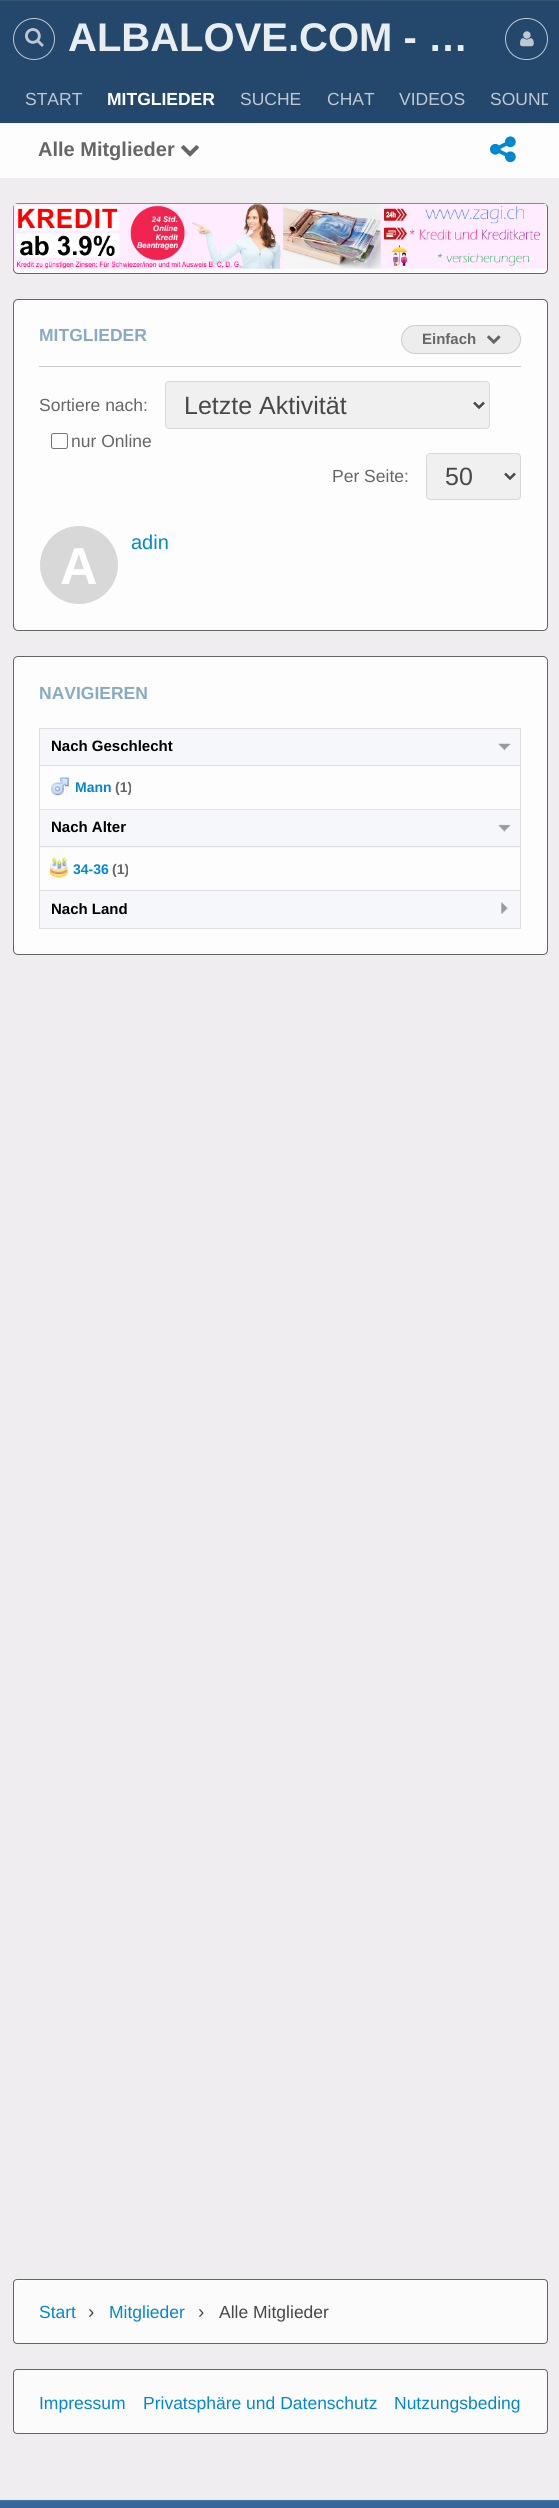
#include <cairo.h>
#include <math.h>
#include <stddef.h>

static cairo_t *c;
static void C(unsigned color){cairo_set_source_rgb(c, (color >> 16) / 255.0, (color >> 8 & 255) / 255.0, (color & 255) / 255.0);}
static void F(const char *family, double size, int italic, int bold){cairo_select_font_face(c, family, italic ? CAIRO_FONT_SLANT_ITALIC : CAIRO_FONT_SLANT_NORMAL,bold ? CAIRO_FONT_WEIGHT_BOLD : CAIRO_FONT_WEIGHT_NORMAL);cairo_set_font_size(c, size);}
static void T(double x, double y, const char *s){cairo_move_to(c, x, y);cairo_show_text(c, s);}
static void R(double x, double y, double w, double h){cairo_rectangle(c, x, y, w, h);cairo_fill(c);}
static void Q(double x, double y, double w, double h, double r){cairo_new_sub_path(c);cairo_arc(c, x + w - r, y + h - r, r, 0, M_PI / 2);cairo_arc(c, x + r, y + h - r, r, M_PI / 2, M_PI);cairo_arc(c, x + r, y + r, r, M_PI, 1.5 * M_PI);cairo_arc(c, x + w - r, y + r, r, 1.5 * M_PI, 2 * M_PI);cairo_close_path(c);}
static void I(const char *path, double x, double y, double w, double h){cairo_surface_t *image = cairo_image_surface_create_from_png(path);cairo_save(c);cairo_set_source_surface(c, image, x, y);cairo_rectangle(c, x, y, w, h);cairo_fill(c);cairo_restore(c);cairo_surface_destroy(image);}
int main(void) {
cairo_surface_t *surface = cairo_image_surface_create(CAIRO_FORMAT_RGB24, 559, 2508);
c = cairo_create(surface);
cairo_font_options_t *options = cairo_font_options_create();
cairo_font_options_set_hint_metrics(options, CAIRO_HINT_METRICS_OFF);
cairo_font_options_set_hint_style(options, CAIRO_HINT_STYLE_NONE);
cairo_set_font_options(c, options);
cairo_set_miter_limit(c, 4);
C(0xffffff);
cairo_paint(c);
I("1.png",0,0,559,2508);
cairo_set_source_rgba(c,0,0,0,0.3);
R(0,0,559,75);
cairo_arc(c,34,39,20.5,0,2 * M_PI);
C(0xbdc8d3);
cairo_set_line_width(c,1);
cairo_stroke(c);
I("2.png",25,28,19,19);
F("Liberation Sans",40,0,1);
C(0xe9edf0);
T(68,51,"ALBALOVE.COM - …");
Q(505.5,18.5,42,41,20.5);
C(0xbdc8d3);
cairo_stroke(c);
I("3.png",520,31,14,16);
cairo_set_source_rgba(c,0,0,0,0.3);
R(0,75,559,48);
F("Liberation Sans",17.5,0,0);
C(0xbdc8d3);
T(25,105,"START");
F("Liberation Sans",17.5,0,1);
C(0xffffff);
T(107,105,"MITGLIEDER");
F("Liberation Sans",17.5,0,0);
C(0xbdc8d3);
T(240,105,"SUCHE");
T(327,105,"CHAT");
T(399,105,"VIDEOS");
cairo_save(c);
cairo_rectangle(c,13,75,535,48);
cairo_clip(c);
T(490,105,"SOUND");
cairo_restore(c);
cairo_set_source_rgba(c,1,1,1,0.9);
R(0,123,559,55);
F("Liberation Sans",20,0,1);
C(0x666666);
T(38,156,"Alle Mitglieder");
I("4.png",181,145,18,12);
I("5.png",490,136,26,27);
C(0xfdfdfe);
Q(13,203,535,71,5);
cairo_fill(c);
Q(13.5,203.5,534,70,4.5);
cairo_set_source_rgba(c,0,0,0,0.6);
cairo_stroke(c);
I("6.png",13,203,534,66);
C(0xfdfdfe);
Q(13,299,535,332,5);
cairo_fill(c);
Q(13.5,299.5,534,331,4.5);
cairo_set_source_rgba(c,0,0,0,0.6);
cairo_stroke(c);
F("Liberation Sans",17.5,0,1);
C(0x88abc2);
T(39,341,"MITGLIEDER");
C(0xededee);
Q(401.5,325.5,119,28,14);
cairo_fill_preserve(c);
C(0xcccccc);
cairo_stroke(c);
F("Liberation Sans",15,0,1);
C(0x666666);
T(422,344,"Einfach");
I("7.png",487,335,14,9);
C(0xcccccc);
R(39,366,482,1);
F("Liberation Sans",17.5,0,0);
C(0x666666);
T(39,411,"Sortiere nach:");
C(0xf0f0f1);
Q(165,381,325,48,4);
cairo_fill(c);
Q(165.5,381.5,324,47,3.5);
cairo_set_source_rgba(c,0,0,0,0.1);
cairo_stroke(c);
cairo_new_path(c);
cairo_move_to(c,474,402.5);
cairo_line_to(c,479,407.5);
cairo_line_to(c,484,402.5);
C(0x484848);
cairo_set_line_width(c,2.5);
cairo_stroke(c);
F("Liberation Sans",25,0,0);
T(184,414,"Letzte Aktivität");
Q(51.5,433.5,16,15,2);
C(0x767676);
cairo_set_line_width(c,1);
cairo_stroke(c);
F("Liberation Sans",17.5,0,0);
C(0x666666);
T(71,447,"nur Online");
T(332,482,"Per Seite:");
C(0xf0f0f1);
Q(426,453,95,47,4);
cairo_fill(c);
Q(426.5,453.5,94,46,3.5);
cairo_set_source_rgba(c,0,0,0,0.1);
cairo_stroke(c);
cairo_new_path(c);
cairo_move_to(c,505,473.5);
cairo_line_to(c,510,478.5);
cairo_line_to(c,515,473.5);
C(0x484848);
cairo_set_line_width(c,2.5);
cairo_stroke(c);
F("Liberation Sans",25,0,0);
T(445,485,"50");
F("Liberation Sans",20,0,0);
C(0x0288d1);
T(131,549,"adin");
C(0xd8d8d8);
cairo_new_path(c);
cairo_arc(c,79,565,39.5,0,2 * M_PI);
cairo_fill_preserve(c);
C(0xffffff);
cairo_set_line_width(c,1);
cairo_stroke(c);
F("Liberation Sans",52,0,1);
T(60,584,"A");
C(0xfdfdfe);
Q(13,656,535,299,5);
cairo_fill(c);
Q(13.5,656.5,534,298,4.5);
cairo_set_source_rgba(c,0,0,0,0.6);
cairo_stroke(c);
F("Liberation Sans",17.5,0,1);
C(0x88abc2);
T(39,699,"NAVIGIEREN");
C(0xdfdfdf);
R(39,728,482,1);
C(0xf5f7fa);
R(40,729,480,36);
C(0xdfdfdf);
R(520,729,1,200);
R(39,765,482,1);
R(39,729,1,37);
F("Liberation Sans",15,0,1);
C(0x000000);
T(51,751,"Nach Geschlecht");
I("8.png",498,743,13,8);
C(0xdfdfdf);
R(39,809,482,1);
R(39,766,1,44);
I("9.png",51,777,18,19);
F("Liberation Sans",14,0,1);
C(0x0288d1);
T(75,792,"Mann");
C(0x666666);
T(115,792,"(1)");
C(0xf5f7fa);
R(40,810,480,38);
C(0xdfdfdf);
R(39,846,482,1);
R(39,810,1,38);
F("Liberation Sans",15,0,1);
C(0x000000);
T(51,832,"Nach Alter");
I("10.png",498,824,13,8);
C(0xdfdfdf);
R(39,890,482,1);
R(39,848,1,43);
I("11.png",50,857,18,21);
F("Liberation Sans",14,0,1);
C(0x0288d1);
T(73,874,"34-36");
C(0x666666);
T(112,874,"(1)");
C(0xf5f7fa);
R(40,891,480,37);
C(0xdfdfdf);
R(39,928,482,1);
R(39,891,1,38);
F("Liberation Sans",15,0,1);
C(0x000000);
T(51,914,"Nach Land");
I("12.png",501,902,7,12);
C(0xfcfbfc);
Q(13,2279,535,65,4);
cairo_fill(c);
Q(13.5,2279.5,534,64,3.5);
cairo_set_source_rgba(c,0,0,0,0.6);
cairo_stroke(c);
F("Liberation Sans",17.5,0,0);
C(0x0288d1);
T(39,2318,"Start");
F("Liberation Sans",19,0,0);
C(0x484848);
T(88,2318,"›");
F("Liberation Sans",17.5,0,0);
C(0x0288d1);
T(109,2318,"Mitglieder");
F("Liberation Sans",19,0,0);
C(0x484848);
T(198,2318,"›");
F("Liberation Sans",17.5,0,0);
T(219,2318,"Alle Mitglieder");
C(0xfcfbfc);
Q(13,2369,535,65,4);
cairo_fill(c);
Q(13.5,2369.5,534,64,3.5);
cairo_set_source_rgba(c,0,0,0,0.6);
cairo_stroke(c);
C(0x0288d1);
T(39,2409,"Impressum");
T(143,2409,"Privatsphäre und Datenschutz");
T(394,2409,"Nutzungsbeding");
cairo_surface_write_to_png(surface, "o.png");
cairo_font_options_destroy(options);
cairo_destroy(c);
cairo_surface_destroy(surface);
return 0;
}
